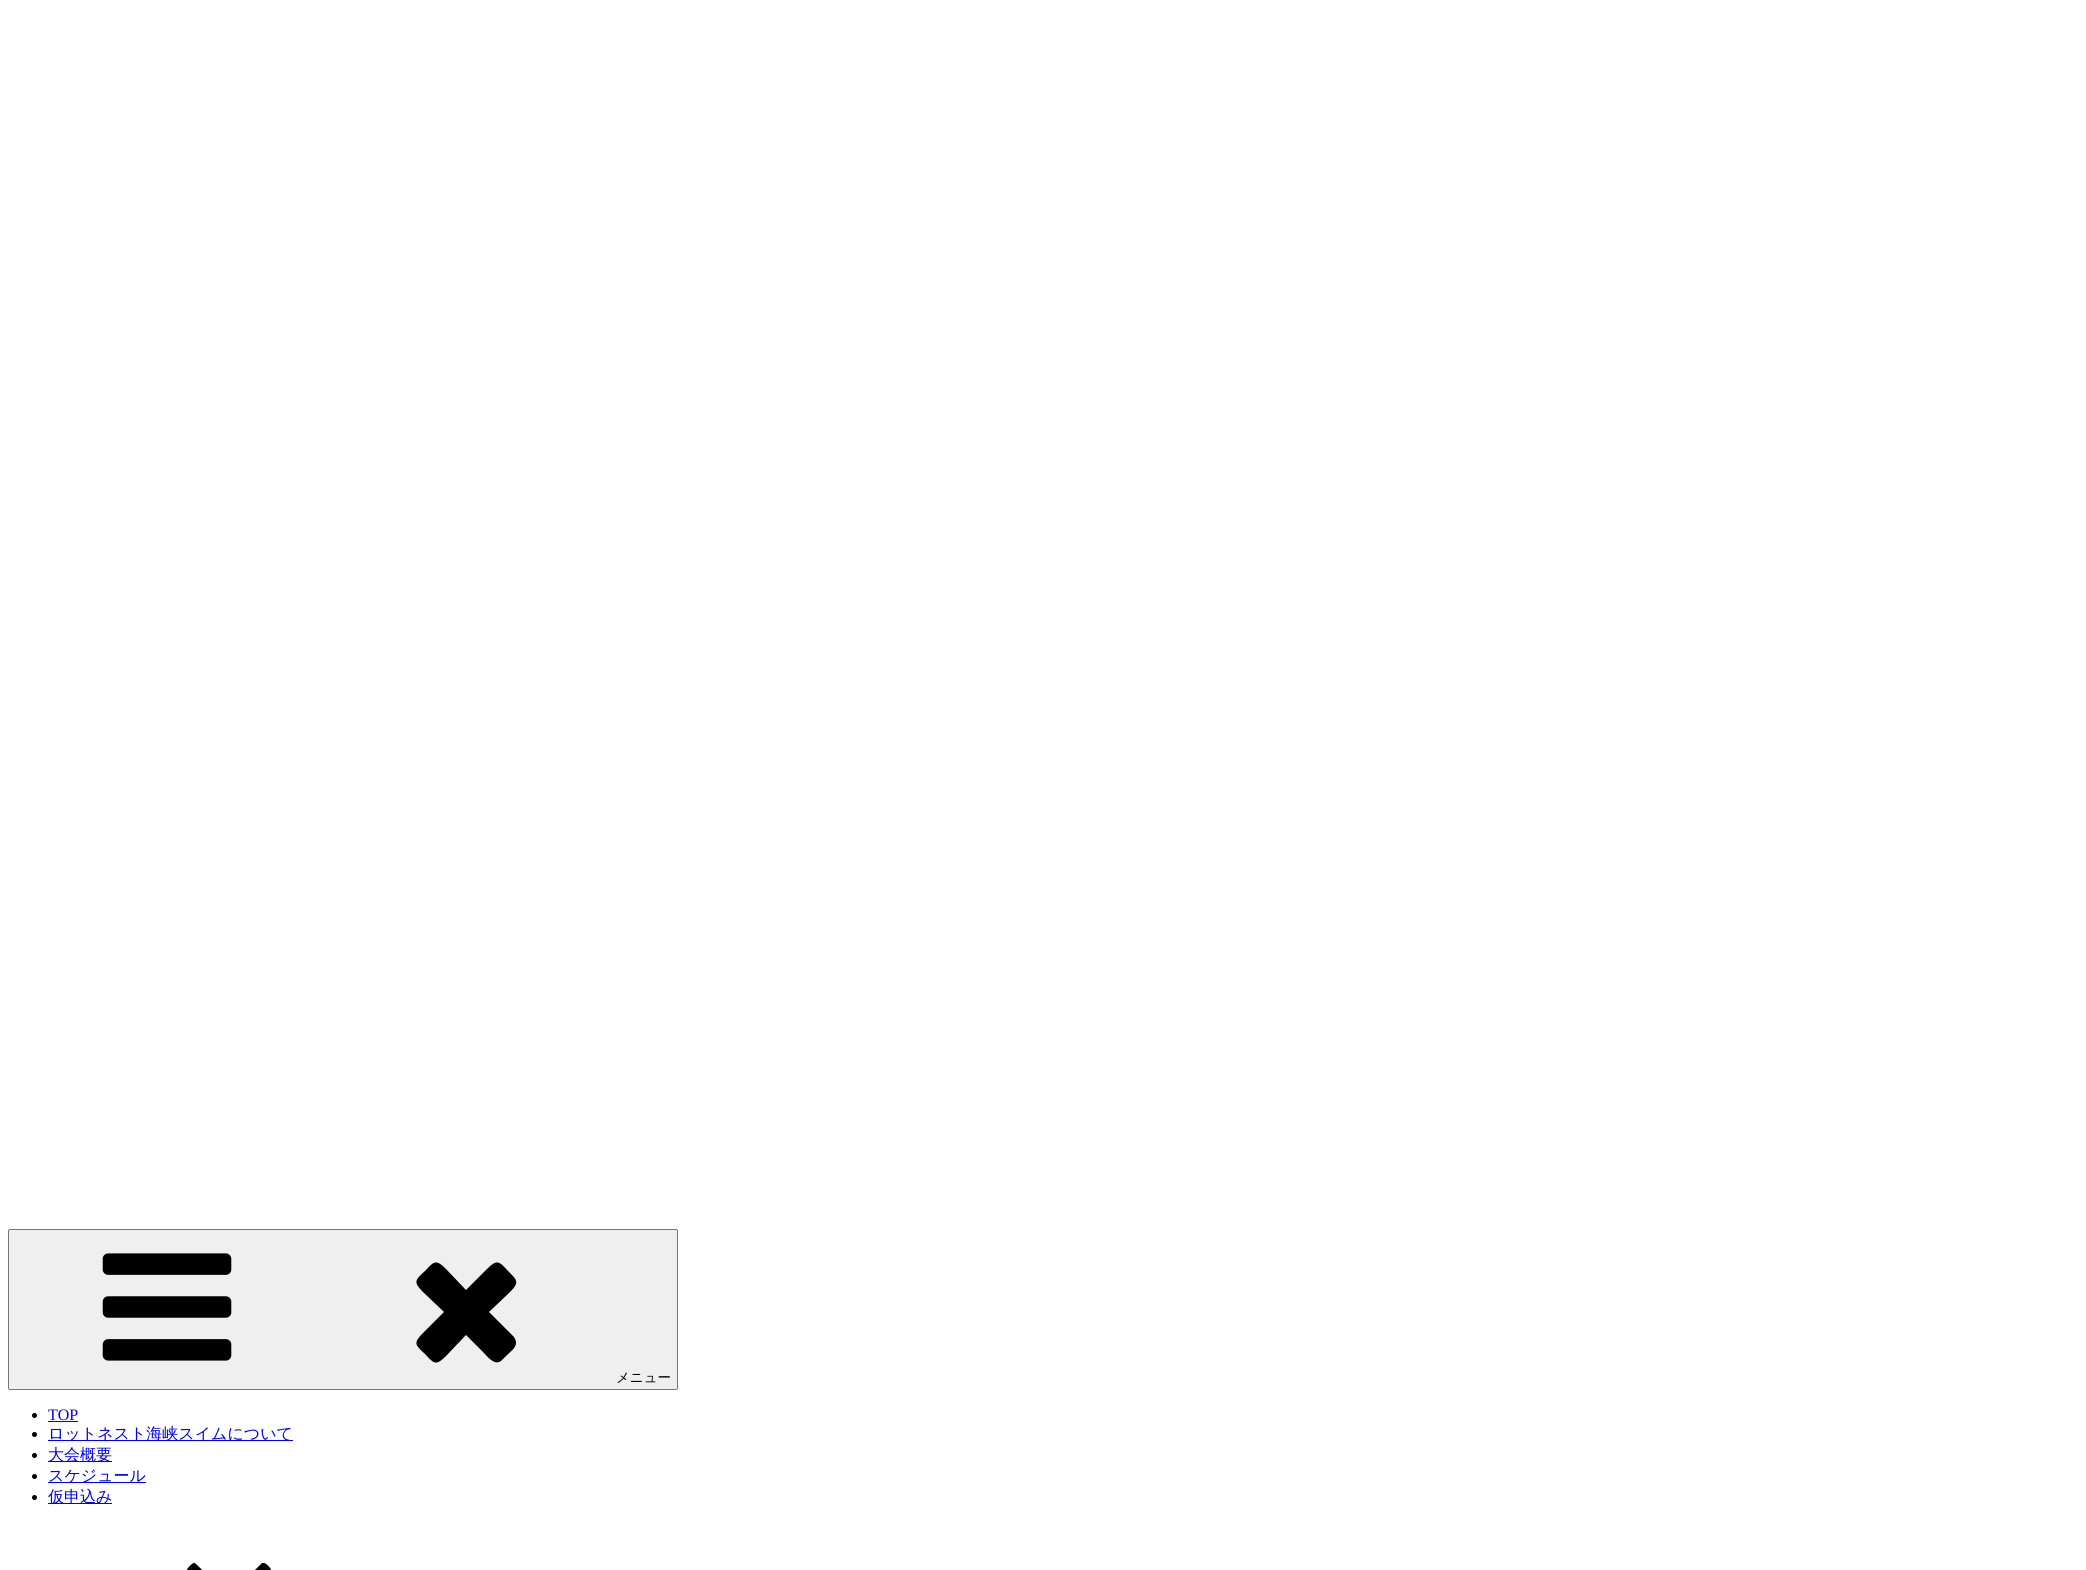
#include <cairo.h>
#include <math.h>
#include <stddef.h>

static cairo_t *c;
static void C(unsigned color){cairo_set_source_rgb(c, (color >> 16) / 255.0, (color >> 8 & 255) / 255.0, (color & 255) / 255.0);}
static void F(const char *family, double size, int italic, int bold){cairo_select_font_face(c, family, italic ? CAIRO_FONT_SLANT_ITALIC : CAIRO_FONT_SLANT_NORMAL,bold ? CAIRO_FONT_WEIGHT_BOLD : CAIRO_FONT_WEIGHT_NORMAL);cairo_set_font_size(c, size);}
static void T(double x, double y, const char *s){cairo_move_to(c, x, y);cairo_show_text(c, s);}
static void R(double x, double y, double w, double h){cairo_rectangle(c, x, y, w, h);cairo_fill(c);}
static void Q(double x, double y, double w, double h, double r){cairo_new_sub_path(c);cairo_arc(c, x + w - r, y + h - r, r, 0, M_PI / 2);cairo_arc(c, x + r, y + h - r, r, M_PI / 2, M_PI);cairo_arc(c, x + r, y + r, r, M_PI, 1.5 * M_PI);cairo_arc(c, x + w - r, y + r, r, 1.5 * M_PI, 2 * M_PI);cairo_close_path(c);}
static void I(const char *path, double x, double y, double w, double h){cairo_surface_t *image = cairo_image_surface_create_from_png(path);cairo_save(c);cairo_set_source_surface(c, image, x, y);cairo_rectangle(c, x, y, w, h);cairo_fill(c);cairo_restore(c);cairo_surface_destroy(image);}
int main(void) {
cairo_surface_t *surface = cairo_image_surface_create(CAIRO_FORMAT_RGB24, 2086, 1570);
c = cairo_create(surface);
cairo_font_options_t *options = cairo_font_options_create();
cairo_font_options_set_hint_metrics(options, CAIRO_HINT_METRICS_OFF);
cairo_font_options_set_hint_style(options, CAIRO_HINT_STYLE_NONE);
cairo_set_font_options(c, options);
cairo_set_miter_limit(c, 4);
C(0xffffff);
cairo_paint(c);
C(0xefefef);
Q(8.5,1229.5,669,160,1.5);
cairo_fill_preserve(c);
C(0x767676);
cairo_set_line_width(c,1);
cairo_stroke(c);
I("1.png",102,1253,130,108);
C(0x000000);
cairo_new_path(c);
cairo_move_to(c,516,1343);
cairo_curve_to(c,516,1348,510,1352,506,1356);
cairo_line_to(c,501,1361);
cairo_curve_to(c,494,1366,487,1356,483,1352);
cairo_line_to(c,466,1335);
cairo_line_to(c,446,1356);
cairo_curve_to(c,436,1366,434,1364,425,1354);
cairo_curve_to(c,415,1345,413,1343,423,1333);
cairo_line_to(c,444,1312);
cairo_line_to(c,423,1292);
cairo_curve_to(c,413,1282,415,1280,425,1271);
cairo_curve_to(c,434,1261,436,1259,446,1269);
cairo_line_to(c,466,1290);
cairo_line_to(c,487,1269);
cairo_curve_to(c,497,1259,499,1261,508,1271);
cairo_curve_to(c,517,1280,520,1282,510,1292);
cairo_line_to(c,489,1312);
cairo_line_to(c,514,1337);
cairo_curve_to(c,515,1339,516,1340,516,1343);
cairo_close_path(c);
cairo_fill(c);
F("WenQuanYi Zen Hei Medium",13.5,0,0);
T(616,1382,"メニュー");
cairo_new_path(c);
cairo_arc(c,34.5,1415.5,2.5,0,2 * M_PI);
cairo_fill(c);
F("Liberation Serif",16,0,0);
C(0x0000ee);
T(48,1420,"TOP");
R(48,1421,30,1);
C(0x000000);
cairo_new_path(c);
cairo_arc(c,34.5,1434.5,2.5,0,2 * M_PI);
cairo_fill(c);
C(0x0000ee);
R(48,1440,245,1);
F("WenQuanYi Zen Hei Medium",16,0,0);
T(48,1439,"ロットネスト海峡スイムについて");
C(0x000000);
cairo_new_path(c);
cairo_arc(c,34.5,1455.5,2.5,0,2 * M_PI);
cairo_fill(c);
C(0x0000ee);
R(48,1461,64,1);
T(48,1460,"大会概要");
C(0x000000);
cairo_new_path(c);
cairo_arc(c,34.5,1476.5,2.5,0,2 * M_PI);
cairo_fill(c);
C(0x0000ee);
R(48,1482,98,1);
T(48,1481,"スケジュール");
C(0x000000);
cairo_new_path(c);
cairo_arc(c,34.5,1497.5,2.5,0,2 * M_PI);
cairo_fill(c);
C(0x0000ee);
R(48,1503,64,1);
T(48,1502,"仮申込み");
C(0x000000);
cairo_new_path(c);
cairo_move_to(c,271,1570);
cairo_line_to(c,270,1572);
cairo_line_to(c,237,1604);
cairo_curve_to(c,228,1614,230,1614,221,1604);
cairo_line_to(c,188,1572);
cairo_line_to(c,187,1570);
cairo_curve_to(c,187,1568,193,1562,195,1563);
cairo_line_to(c,229,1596);
cairo_line_to(c,262,1563);
cairo_line_to(c,264,1563);
cairo_curve_to(c,266,1563,271,1568,271,1570);
cairo_close_path(c);
cairo_fill(c);
cairo_surface_write_to_png(surface, "o.png");
cairo_font_options_destroy(options);
cairo_destroy(c);
cairo_surface_destroy(surface);
return 0;
}
